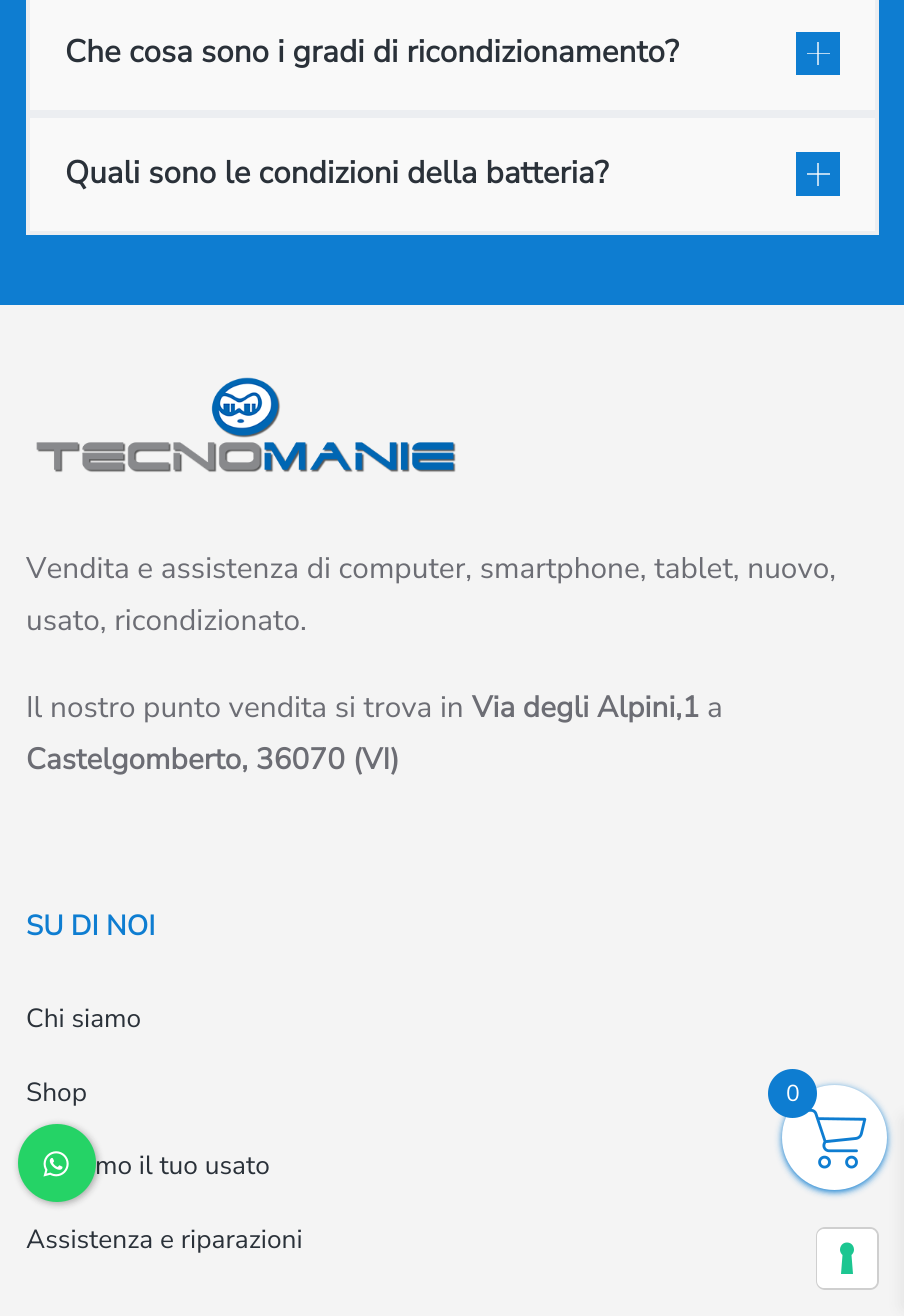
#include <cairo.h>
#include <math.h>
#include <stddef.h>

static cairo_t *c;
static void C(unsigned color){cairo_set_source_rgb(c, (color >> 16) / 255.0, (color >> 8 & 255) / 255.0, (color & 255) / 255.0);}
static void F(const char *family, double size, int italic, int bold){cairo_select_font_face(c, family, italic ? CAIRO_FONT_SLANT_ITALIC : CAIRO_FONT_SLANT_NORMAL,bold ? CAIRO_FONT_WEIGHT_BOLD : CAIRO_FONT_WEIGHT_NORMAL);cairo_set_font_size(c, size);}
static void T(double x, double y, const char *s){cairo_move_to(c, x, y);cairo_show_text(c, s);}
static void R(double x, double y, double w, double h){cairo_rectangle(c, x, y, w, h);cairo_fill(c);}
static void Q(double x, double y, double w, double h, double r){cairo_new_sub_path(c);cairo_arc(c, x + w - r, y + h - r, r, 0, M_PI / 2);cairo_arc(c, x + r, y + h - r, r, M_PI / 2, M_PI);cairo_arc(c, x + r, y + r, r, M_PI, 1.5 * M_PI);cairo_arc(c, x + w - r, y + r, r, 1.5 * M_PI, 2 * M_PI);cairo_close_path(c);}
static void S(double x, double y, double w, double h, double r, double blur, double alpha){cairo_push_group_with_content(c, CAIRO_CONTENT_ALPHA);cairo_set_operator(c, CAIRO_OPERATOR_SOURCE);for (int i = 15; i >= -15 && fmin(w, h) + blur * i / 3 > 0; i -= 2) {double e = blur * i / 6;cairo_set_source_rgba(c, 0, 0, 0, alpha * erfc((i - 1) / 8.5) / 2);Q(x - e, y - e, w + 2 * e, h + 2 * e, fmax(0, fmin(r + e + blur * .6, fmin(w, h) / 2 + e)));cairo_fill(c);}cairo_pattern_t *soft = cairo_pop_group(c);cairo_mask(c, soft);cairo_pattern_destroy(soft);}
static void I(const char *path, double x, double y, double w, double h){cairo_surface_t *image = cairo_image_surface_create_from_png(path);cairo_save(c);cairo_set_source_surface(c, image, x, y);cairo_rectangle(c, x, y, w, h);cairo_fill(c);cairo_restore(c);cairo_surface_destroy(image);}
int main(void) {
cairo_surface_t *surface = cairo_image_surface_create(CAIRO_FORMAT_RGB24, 904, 1316);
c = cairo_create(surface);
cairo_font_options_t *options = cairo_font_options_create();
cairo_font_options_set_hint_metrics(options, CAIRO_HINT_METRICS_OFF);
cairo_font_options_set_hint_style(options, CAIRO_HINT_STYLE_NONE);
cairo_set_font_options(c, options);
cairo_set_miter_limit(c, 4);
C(0x0e7dd1);
cairo_paint(c);
C(0xf9f9f9);
cairo_rectangle(c,28,-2,849,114);
cairo_fill_preserve(c);
C(0xeceef1);
cairo_set_line_width(c,4);
cairo_stroke(c);
F("Nunito Sans",31.5,0,1);
C(0x2a3139);
T(65,62,"Che cosa sono i gradi di ricondizionamento?");
C(0x0e7dd1);
R(796,32,44,43);
C(0xb7d8f1);
R(817,42,2,23);
R(807,53,23,1);
C(0xe9f3fb);
R(817,53,2,1);
C(0xf9f9f9);
cairo_rectangle(c,28,116,849,117);
cairo_fill_preserve(c);
C(0xeceef1);
cairo_stroke(c);
C(0x2a3139);
T(65,183,"Quali sono le condizioni della batteria?");
C(0x0e7dd1);
R(796,152,44,44);
C(0xb7d8f1);
R(817,163,2,23);
R(807,173,23,2);
C(0xe9f3fb);
R(817,173,2,2);
C(0xf4f4f4);
R(0,305,904,1011);
I("1.png",36,377,420,96);
F("Nunito Sans ExtraLight",29.75,0,0);
C(0x6c6d74);
T(26,578,"Vendita e assistenza di computer, smartphone, tablet, nuovo,");
T(26,630,"usato, ricondizionato.");
T(26,717,"Il nostro punto vendita si trova in");
F("Nunito Sans",29.75,0,1);
T(472,717,"Via degli Alpini,1");
F("Nunito Sans ExtraLight",29.75,0,0);
T(707,717,"a");
F("Nunito Sans",29.75,0,1);
T(26,769,"Castelgomberto, 36070 (VI)");
F("Nunito Sans",28,0,1);
C(0x0e7dd1);
T(26,935,"SU DI NOI");
F("Nunito Sans ExtraLight",26.25,0,0);
C(0x2a3139);
T(26,1027,"Chi siamo");
T(26,1101,"Shop");
T(95,1174,"mo il tuo usato");
T(26,1248,"Assistenza e riparazioni");
C(0x0e7dd1);
S(782,1087,105,105,52.5,3.5,1);
C(0x000000);
S(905,1120,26,187,0,9,.1);
C(0xffffff);
cairo_arc(c,834.5,1137.5,52.5,0,2 * M_PI);
cairo_fill(c);
I("2.png",808,1108,59,61);
C(0x0e7dd1);
cairo_arc(c,792.5,1093.5,24.5,0,2 * M_PI);
cairo_fill(c);
F("Nunito Sans ExtraLight",23,0,0);
C(0xffffff);
T(786,1101,"0");
C(0x000000);
S(19,1125,79,79,39.5,3.5,.3);
C(0x25d366);
cairo_arc(c,57,1163,39,0,2 * M_PI);
cairo_fill(c);
I("3.png",43,1151,26,26);
Q(817,1228,61,61,8);
C(0xcfcfcf);
cairo_set_line_width(c,2);
cairo_stroke(c);
C(0xffffff);
Q(817,1229,60,59,7);
cairo_fill(c);
C(0x1cc691);
cairo_set_fill_rule(c,CAIRO_FILL_RULE_EVEN_ODD);
cairo_new_path(c);
cairo_move_to(c,847,1242.5);
cairo_curve_to(c,853.5,1242.5,856.5,1250.5,851.5,1255);
cairo_line_to(c,853,1274);
cairo_line_to(c,841,1274);
cairo_line_to(c,842.5,1255);
cairo_curve_to(c,837.5,1250.5,840.5,1242.5,847,1242.5);
cairo_close_path(c);
cairo_fill(c);
cairo_surface_write_to_png(surface, "o.png");
cairo_font_options_destroy(options);
cairo_destroy(c);
cairo_surface_destroy(surface);
return 0;
}
